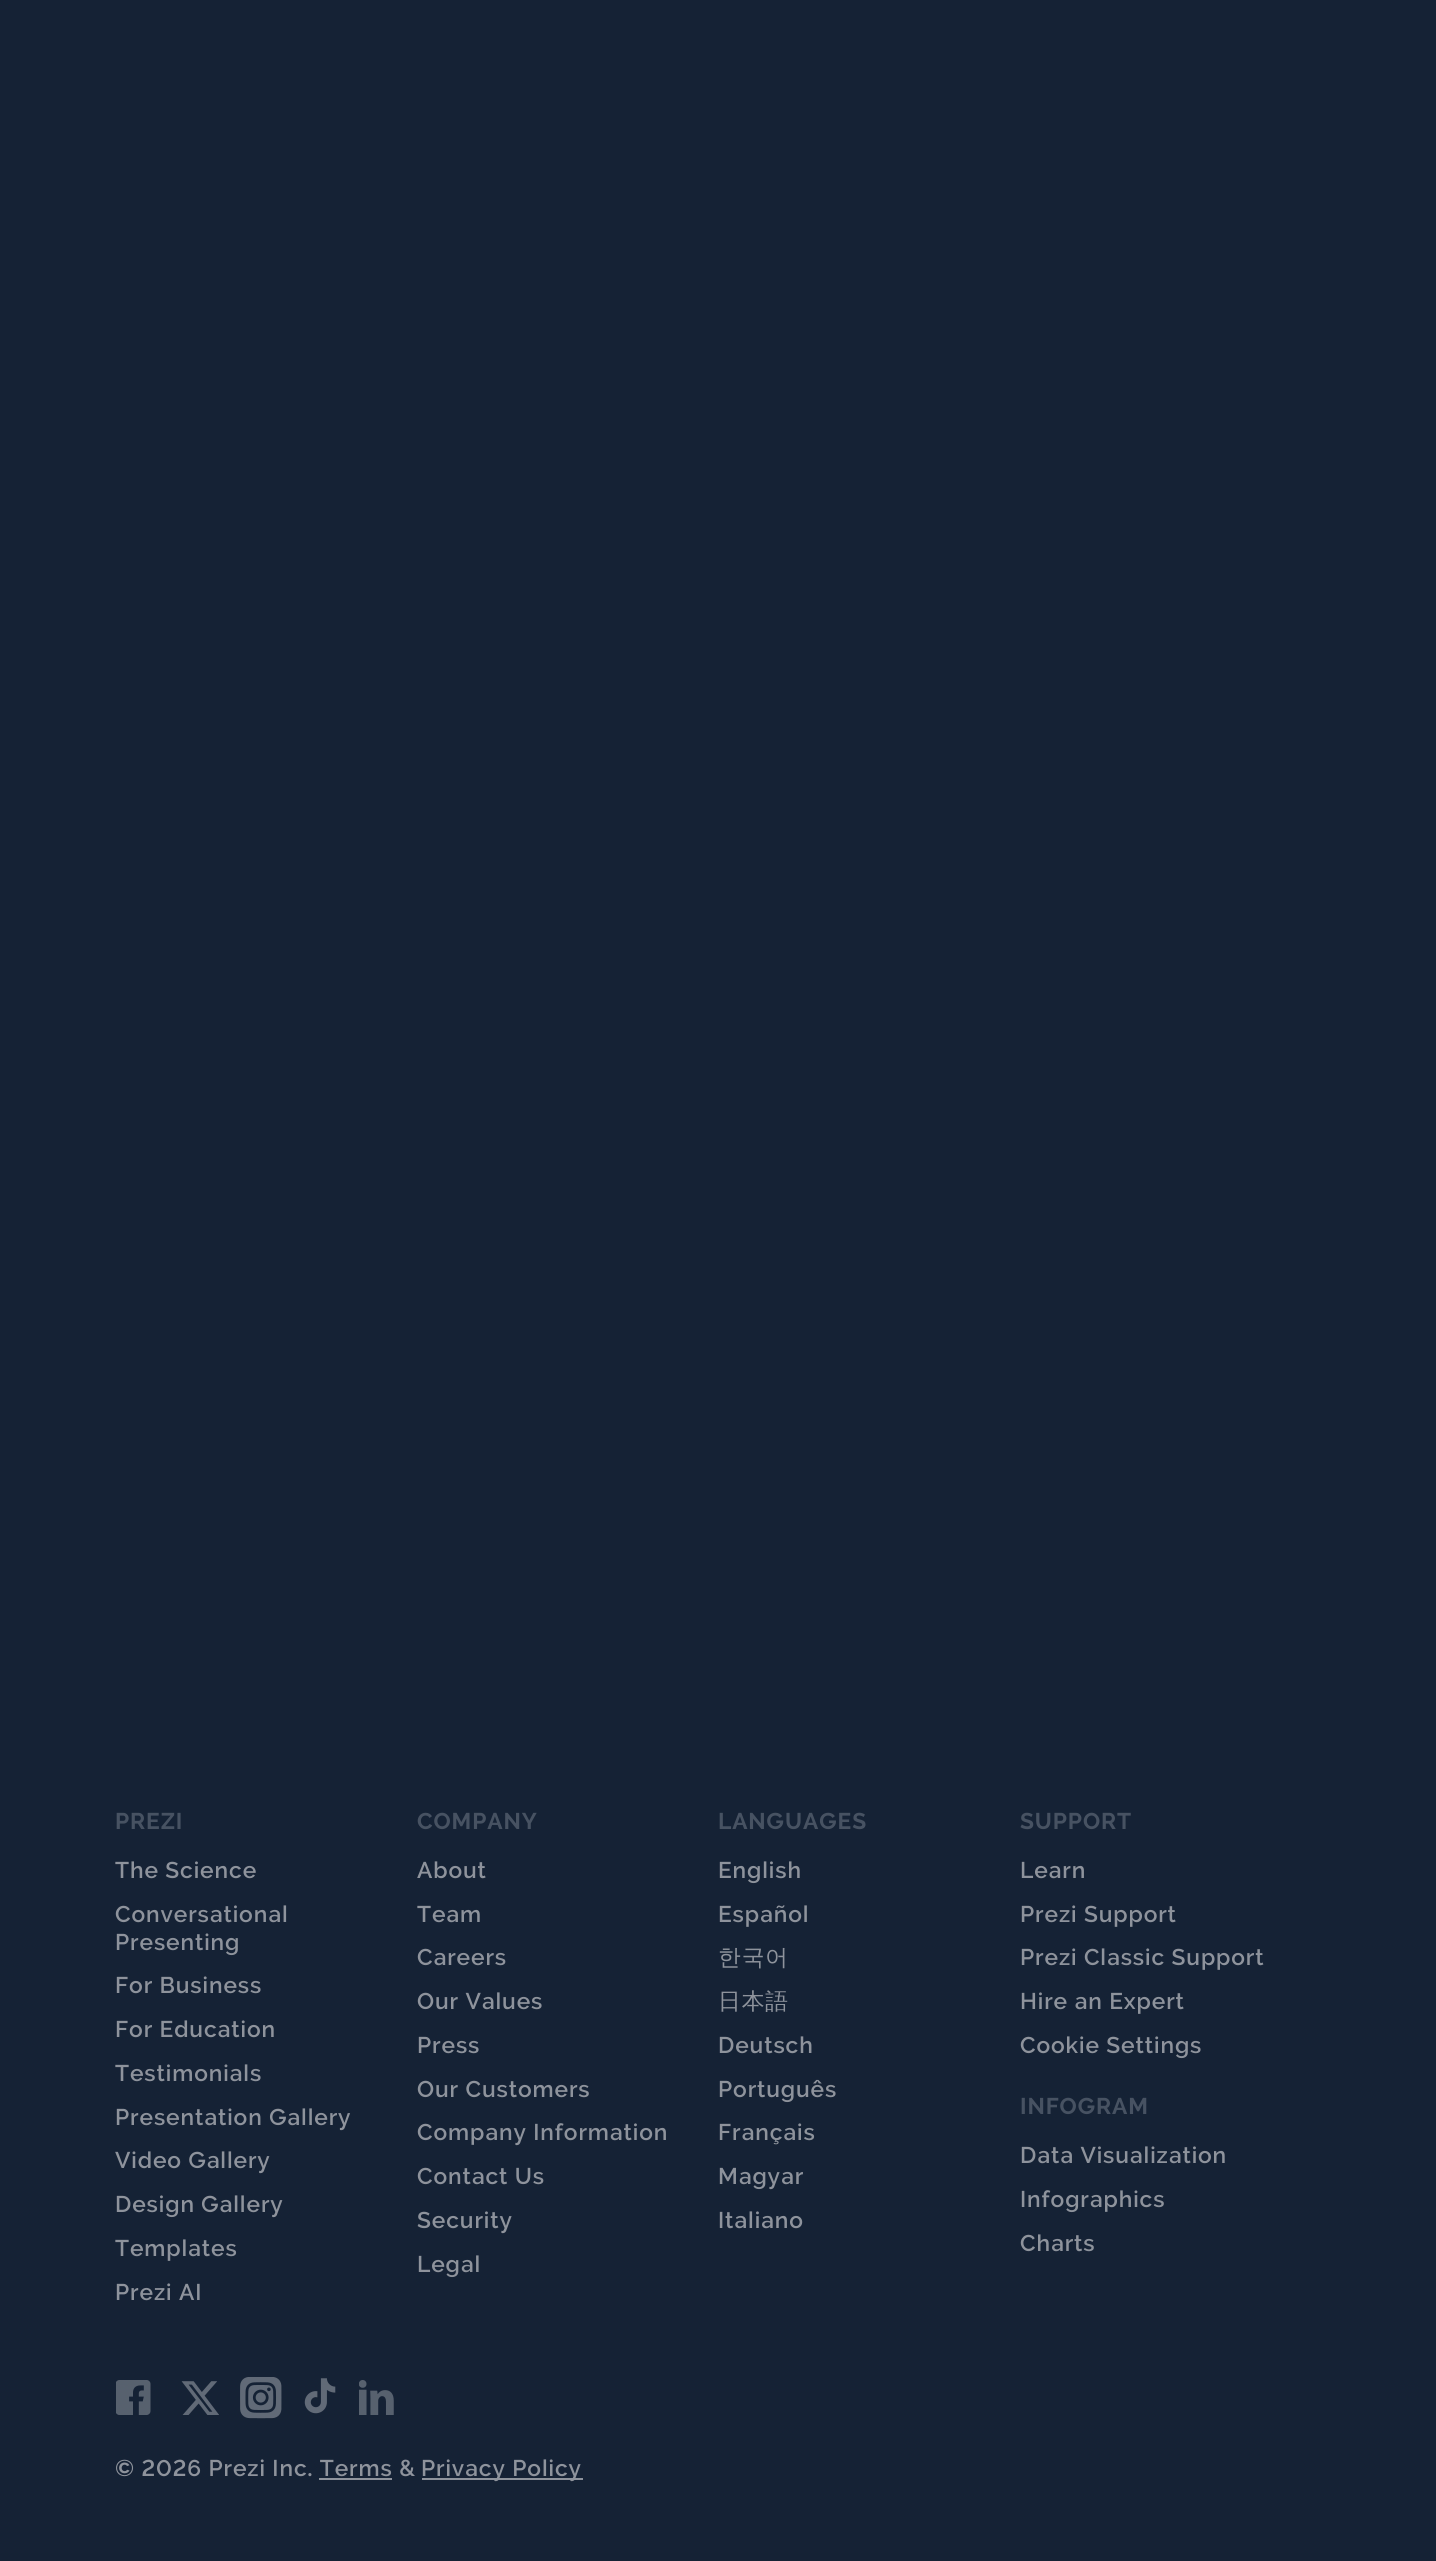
#include <cairo.h>
#include <math.h>
#include <stddef.h>

static cairo_t *c;
static void C(unsigned color){cairo_set_source_rgb(c, (color >> 16) / 255.0, (color >> 8 & 255) / 255.0, (color & 255) / 255.0);}
static void F(const char *family, double size, int italic, int bold){cairo_select_font_face(c, family, italic ? CAIRO_FONT_SLANT_ITALIC : CAIRO_FONT_SLANT_NORMAL,bold ? CAIRO_FONT_WEIGHT_BOLD : CAIRO_FONT_WEIGHT_NORMAL);cairo_set_font_size(c, size);}
static void L(double x, double y, const char *s, double letter, double word){cairo_move_to(c, x, y);while (*s) {char ch[5] = {0};int n = 0;do ch[n++] = *s++; while ((*s & 0xC0) == 0x80);cairo_show_text(c, ch);cairo_rel_move_to(c, letter + word * (*ch == ' '), 0);}}
static void R(double x, double y, double w, double h){cairo_rectangle(c, x, y, w, h);cairo_fill(c);}
static void I(const char *path, double x, double y, double w, double h){cairo_surface_t *image = cairo_image_surface_create_from_png(path);cairo_save(c);cairo_set_source_surface(c, image, x, y);cairo_rectangle(c, x, y, w, h);cairo_fill(c);cairo_restore(c);cairo_surface_destroy(image);}
int main(void) {
cairo_surface_t *surface = cairo_image_surface_create(CAIRO_FORMAT_RGB24, 1436, 2561);
c = cairo_create(surface);
cairo_font_options_t *options = cairo_font_options_create();
cairo_font_options_set_hint_metrics(options, CAIRO_HINT_METRICS_OFF);
cairo_font_options_set_hint_style(options, CAIRO_HINT_STYLE_NONE);
cairo_set_font_options(c, options);
cairo_set_miter_limit(c, 4);
C(0x152235);
cairo_paint(c);
F("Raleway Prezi",22.75,0,1);
C(0x475262);
L(115,1829,"PREZI",.9,0);
F("Raleway Prezi SemiBold",22.75,0,0);
C(0x8e939c);
L(115,1878,"The Science",.9,0);
L(115,1922,"Conversational",.9,0);
L(115,1950,"Presenting",.9,0);
L(115,1993,"For Business",.9,0);
L(115,2037,"For Education",.9,0);
L(115,2081,"Testimonials",.9,0);
L(115,2125,"Presentation Gallery",.9,0);
L(115,2168,"Video Gallery",.9,0);
L(115,2212,"Design Gallery",.9,0);
L(115,2256,"Templates",.9,0);
L(115,2300,"Prezi AI",.9,0);
F("Raleway Prezi",22.75,0,1);
C(0x475262);
L(417,1829,"COMPANY",.9,0);
F("Raleway Prezi SemiBold",22.75,0,0);
C(0x8e939c);
L(417,1878,"About",.9,0);
L(417,1922,"Team",.9,0);
L(417,1965,"Careers",.9,0);
L(417,2009,"Our Values",.9,0);
L(417,2053,"Press",.9,0);
L(417,2097,"Our Customers",.9,0);
L(417,2140,"Company Information",.9,0);
L(417,2184,"Contact Us",.9,0);
L(417,2228,"Security",.9,0);
L(417,2272,"Legal",.9,0);
F("Raleway Prezi",22.75,0,1);
C(0x475262);
L(718,1829,"LANGUAGES",.9,0);
F("Raleway Prezi SemiBold",22.75,0,0);
C(0x8e939c);
L(718,1878,"English",.9,0);
L(718,1922,"Español",.9,0);
F("WenQuanYi Zen Hei Medium",22.75,0,0);
L(718,1965,"한국어",.9,0);
L(718,2009,"日本語",.9,0);
F("Raleway Prezi SemiBold",22.75,0,0);
L(718,2053,"Deutsch",.9,0);
L(718,2097,"Português",.9,0);
L(718,2140,"Français",.9,0);
L(718,2184,"Magyar",.9,0);
L(718,2228,"Italiano",.9,0);
F("Raleway Prezi",22.75,0,1);
C(0x475262);
L(1020,1829,"SUPPORT",.9,0);
F("Raleway Prezi SemiBold",22.75,0,0);
C(0x8e939c);
L(1020,1878,"Learn",.9,0);
L(1020,1922,"Prezi Support",.9,0);
L(1020,1965,"Prezi Classic Support",.9,0);
L(1020,2009,"Hire an Expert",.9,0);
L(1020,2053,"Cookie Settings",.9,0);
F("Raleway Prezi",22.75,0,1);
C(0x475262);
L(1020,2114,"INFOGRAM",.9,0);
F("Raleway Prezi SemiBold",22.75,0,0);
C(0x8e939c);
L(1020,2163,"Data Visualization",.9,0);
L(1020,2207,"Infographics",.9,0);
L(1020,2251,"Charts",.9,0);
I("1.png",116,2380,35,35);
I("2.png",181,2381,38,34);
I("3.png",240,2377,42,42);
I("4.png",304,2378,32,36);
I("5.png",359,2380,35,35);
L(115,2476,"© 2026 Prezi Inc. Terms &",.9,0);
R(422,2478,161,2);
L(421,2476,"Privacy Policy",.9,0);
R(319,2478,73,2);
cairo_surface_write_to_png(surface, "o.png");
cairo_font_options_destroy(options);
cairo_destroy(c);
cairo_surface_destroy(surface);
return 0;
}
